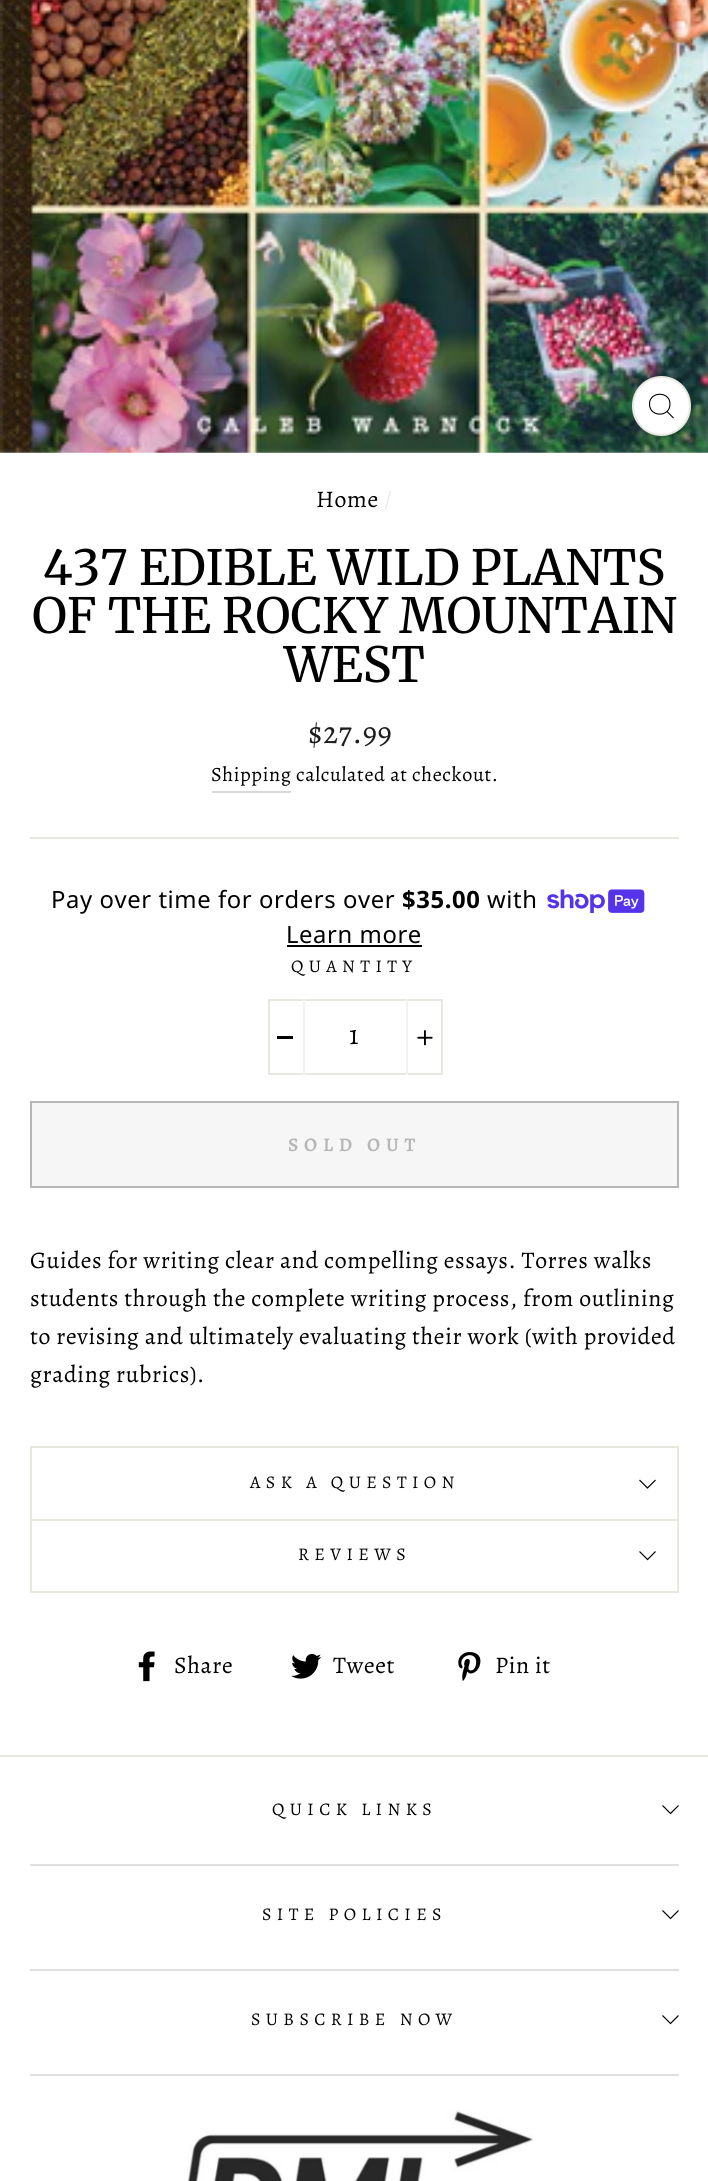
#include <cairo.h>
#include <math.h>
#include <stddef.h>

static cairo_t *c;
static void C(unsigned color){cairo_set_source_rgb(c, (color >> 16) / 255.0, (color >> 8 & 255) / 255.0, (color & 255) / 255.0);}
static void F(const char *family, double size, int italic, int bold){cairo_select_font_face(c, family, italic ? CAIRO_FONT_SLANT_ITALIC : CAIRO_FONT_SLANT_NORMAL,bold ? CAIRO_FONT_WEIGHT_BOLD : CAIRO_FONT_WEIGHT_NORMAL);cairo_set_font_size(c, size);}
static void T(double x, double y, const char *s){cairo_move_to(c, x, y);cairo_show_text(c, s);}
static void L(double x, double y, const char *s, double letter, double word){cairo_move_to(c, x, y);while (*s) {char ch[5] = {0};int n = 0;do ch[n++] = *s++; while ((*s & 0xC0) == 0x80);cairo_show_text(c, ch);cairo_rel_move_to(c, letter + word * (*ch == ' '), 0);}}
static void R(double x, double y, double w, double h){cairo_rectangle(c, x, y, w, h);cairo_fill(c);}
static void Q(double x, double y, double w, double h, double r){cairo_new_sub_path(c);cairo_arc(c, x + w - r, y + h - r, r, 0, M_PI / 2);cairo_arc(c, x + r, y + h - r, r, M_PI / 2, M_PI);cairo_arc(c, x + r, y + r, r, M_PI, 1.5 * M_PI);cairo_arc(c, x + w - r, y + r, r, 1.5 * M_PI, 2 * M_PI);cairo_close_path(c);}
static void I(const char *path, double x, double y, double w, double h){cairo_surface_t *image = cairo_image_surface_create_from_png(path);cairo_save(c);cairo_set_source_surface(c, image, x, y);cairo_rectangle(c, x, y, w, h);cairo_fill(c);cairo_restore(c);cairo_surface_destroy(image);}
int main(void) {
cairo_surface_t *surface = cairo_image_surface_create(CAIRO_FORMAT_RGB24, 708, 2181);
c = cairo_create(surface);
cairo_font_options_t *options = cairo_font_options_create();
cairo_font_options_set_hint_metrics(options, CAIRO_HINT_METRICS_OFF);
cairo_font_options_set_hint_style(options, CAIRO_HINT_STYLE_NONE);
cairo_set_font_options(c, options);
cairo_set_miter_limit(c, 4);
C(0xffffff);
cairo_paint(c);
I("1.png",0,0,708,453);
C(0xffffff);
Q(633,377,57,58,28.5);
cairo_fill_preserve(c);
C(0xe8e8e1);
cairo_stroke(c);
cairo_new_path(c);
cairo_move_to(c,670,404);
cairo_curve_to(c,670,417.5,649.5,417.5,649.5,404);
cairo_curve_to(c,649.5,391,670,391,670,404);
cairo_close_path(c);
cairo_move_to(c,673.5,418);
cairo_line_to(c,667,411.5);
C(0x000000);
cairo_set_line_width(c,1.1);
cairo_stroke(c);
F("Alegreya",23.8,0,0);
L(316,507,"Home",.6,0);
C(0xe8e8e1);
L(384,507,"/",.6,0);
F("Merriweather",48.5,0,0);
C(0x000000);
T(43,585,"437 EDIBLE WILD PLANTS");
T(32,633,"OF THE ROCKY MOUNTAIN");
T(284,682,"WEST");
F("Alegreya",31.5,0,0);
C(0x1c1d1d);
L(308,743,"$27.99",.6,0);
C(0xd9d9d9);
R(212,791,79,2);
F("Alegreya",20.25,0,0);
C(0x000000);
L(211,781,"Shipping",.6,0);
L(296,781,"calculated at checkout.",.6,0);
C(0xe8e8e1);
R(30,837,649,2);
F("Noto Sans",23.8,0,0);
C(0x000000);
L(51,908,"Pay over time for orders over",.6,0);
F("Noto Sans",23.8,0,1);
L(402,908,"$35.00",.6,0);
F("Noto Sans",23.8,0,0);
L(487,908,"with",.6,0);
I("2.png",547,889,98,24);
L(286,943,"Learn more",.6,0);
R(287,945,135,2);
F("Alegreya",17.8,0,0);
L(291,972,"QUANTITY",5.4,0);
cairo_rectangle(c,269,1000,173,74);
C(0xe8e8e1);
cairo_set_line_width(c,2);
cairo_stroke(c);
C(0xf2f2f2);
R(303,999,2,76);
C(0x000000);
R(277,1036,16,3);
F("Alegreya",28,0,0);
L(349,1044,"1",1,0);
C(0xf2f2f2);
R(406,999,2,76);
I("3.png",417,1030,16,16);
C(0xf6f6f6);
cairo_rectangle(c,31,1102,647,85);
cairo_fill_preserve(c);
C(0xb6b6b6);
cairo_stroke(c);
F("Alegreya SemiBold",19.25,0,0);
L(288,1151,"SOLD OUT",5.75,0);
F("Alegreya",23.8,0,0);
C(0x000000);
L(30,1268,"Guides for writing clear and compelling essays. Torres walks",.6,0);
L(30,1306,"students through the complete writing process, from outlining",.6,0);
L(30,1344,"to revising and ultimately evaluating their work (with provided",.6,0);
L(30,1382,"grading rubrics).",.6,0);
C(0xe8e8e1);
R(30,1591,649,2);
R(30,1446,649,2);
R(677,1446,2,73);
R(30,1446,2,73);
F("Alegreya",17.8,0,0);
C(0x000000);
L(250,1488,"ASK A QUESTION",5.4,0);
cairo_new_path(c);
cairo_move_to(c,639.5,1480);
cairo_line_to(c,647.5,1488);
cairo_line_to(c,655.5,1480);
cairo_set_line_width(c,1.2);
cairo_stroke(c);
C(0xe8e8e1);
R(30,1519,649,2);
R(677,1519,2,72);
R(30,1519,2,72);
C(0x000000);
L(298,1560,"REVIEWS",5.4,0);
cairo_new_path(c);
cairo_move_to(c,639.5,1551.5);
cairo_line_to(c,647.5,1559.5);
cairo_line_to(c,655.5,1551.5);
cairo_stroke(c);
I("4.png",138,1651,17,31);
F("Alegreya",23.8,0,0);
L(174,1673,"Share",.6,0);
I("5.png",291,1654,31,25);
L(333,1673,"Tweet",.6,0);
I("6.png",458,1652,23,29);
L(495,1673,"Pin it",.6,0);
C(0xe8e8e1);
R(0,1755,708,2);
F("Alegreya",17.8,0,0);
C(0x000000);
L(272,1815,"QUICK LINKS",5.4,0);
cairo_new_path(c);
cairo_move_to(c,662.5,1805.5);
cairo_line_to(c,670.5,1813.5);
cairo_line_to(c,678.5,1805.5);
cairo_stroke(c);
C(0xe0e0e0);
R(30,1864,649,2);
C(0x000000);
L(262,1920,"SITE POLICIES",5.4,0);
cairo_new_path(c);
cairo_move_to(c,662.5,1910.5);
cairo_line_to(c,670.5,1918.5);
cairo_line_to(c,678.5,1910.5);
cairo_stroke(c);
C(0xe0e0e0);
R(30,1969,649,2);
C(0x000000);
L(251,2025,"SUBSCRIBE NOW",5.4,0);
cairo_new_path(c);
cairo_move_to(c,662.5,2015.5);
cairo_line_to(c,670.5,2023.5);
cairo_line_to(c,678.5,2015.5);
cairo_stroke(c);
C(0xe0e0e0);
R(30,2074,649,2);
I("7.png",187,2110,347,71);
cairo_surface_write_to_png(surface, "o.png");
cairo_font_options_destroy(options);
cairo_destroy(c);
cairo_surface_destroy(surface);
return 0;
}
